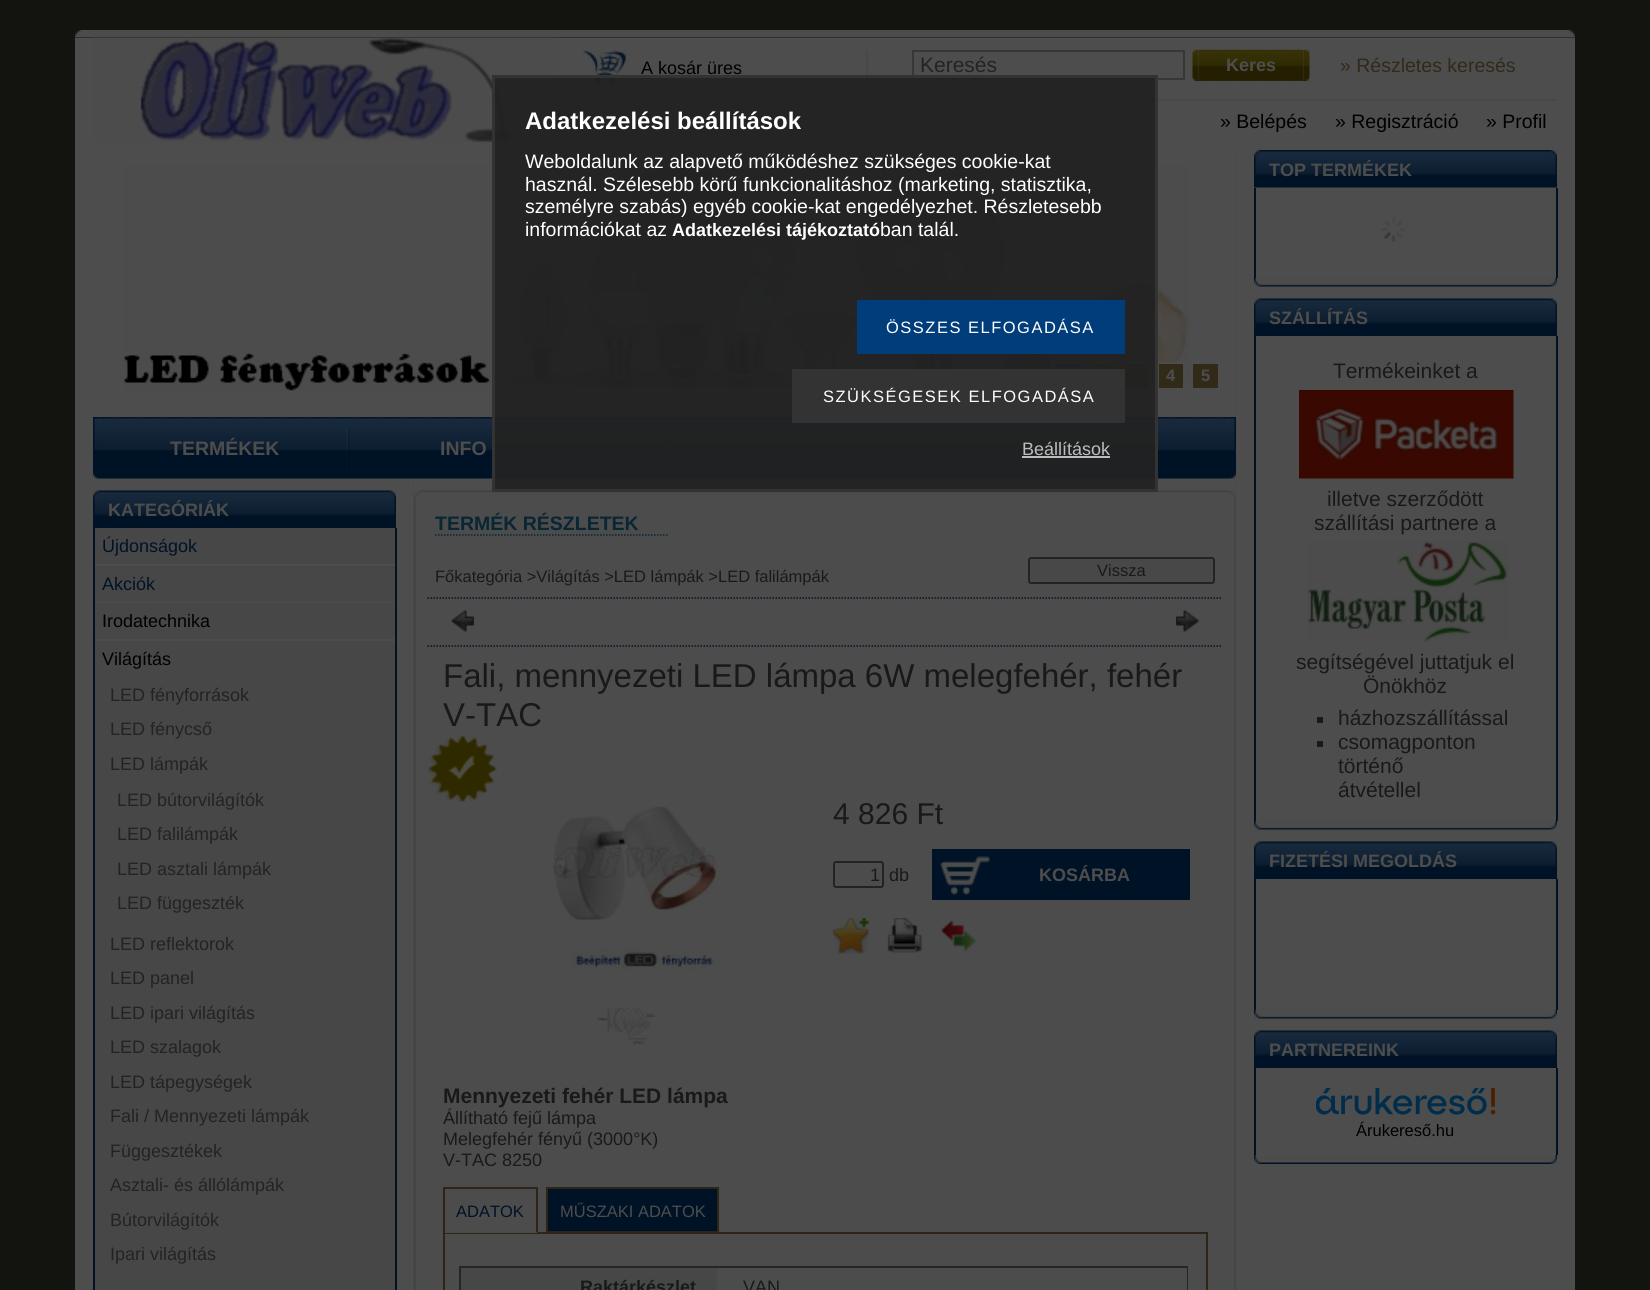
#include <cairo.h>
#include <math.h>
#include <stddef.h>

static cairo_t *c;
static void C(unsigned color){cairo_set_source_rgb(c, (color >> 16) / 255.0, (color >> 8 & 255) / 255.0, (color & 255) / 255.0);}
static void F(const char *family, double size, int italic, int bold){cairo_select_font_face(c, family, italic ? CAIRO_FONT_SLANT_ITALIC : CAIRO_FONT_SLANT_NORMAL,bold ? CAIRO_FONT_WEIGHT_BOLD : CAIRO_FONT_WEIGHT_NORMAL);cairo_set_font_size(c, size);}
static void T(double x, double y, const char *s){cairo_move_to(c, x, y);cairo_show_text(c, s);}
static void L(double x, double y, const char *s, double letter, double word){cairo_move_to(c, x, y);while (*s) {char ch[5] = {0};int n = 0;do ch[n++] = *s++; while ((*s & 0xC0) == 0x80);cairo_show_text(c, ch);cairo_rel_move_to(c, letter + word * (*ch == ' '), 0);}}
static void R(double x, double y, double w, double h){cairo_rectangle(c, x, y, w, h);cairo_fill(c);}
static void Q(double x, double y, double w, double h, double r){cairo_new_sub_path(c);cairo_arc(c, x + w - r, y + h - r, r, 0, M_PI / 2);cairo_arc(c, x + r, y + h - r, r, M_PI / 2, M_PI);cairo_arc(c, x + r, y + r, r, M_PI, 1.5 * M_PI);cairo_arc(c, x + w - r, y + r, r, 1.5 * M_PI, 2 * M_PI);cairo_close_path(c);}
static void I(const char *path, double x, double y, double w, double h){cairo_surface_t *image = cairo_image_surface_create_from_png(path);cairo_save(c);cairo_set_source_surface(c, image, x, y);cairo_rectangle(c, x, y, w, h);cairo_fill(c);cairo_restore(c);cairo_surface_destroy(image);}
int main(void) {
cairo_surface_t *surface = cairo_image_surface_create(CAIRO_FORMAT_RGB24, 1650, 1290);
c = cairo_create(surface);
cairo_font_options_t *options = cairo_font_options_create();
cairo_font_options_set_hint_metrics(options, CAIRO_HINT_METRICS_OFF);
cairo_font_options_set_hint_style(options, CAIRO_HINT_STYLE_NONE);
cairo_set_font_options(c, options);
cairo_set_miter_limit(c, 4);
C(0x13130f);
cairo_paint(c);
I("1.png",75,30,1500,8);
C(0x4d4d4d);
R(75,38,1500,1252);
I("2.png",93,37,465,106);
C(0x484848);
R(582,99,975,2);
I("3.png",582,49,44,36);
R(866,50,2,31);
F("Liberation Sans",18,0,0);
C(0x000000);
T(641,74,"A kosár üres");
cairo_rectangle(c,913,51,271,28);
C(0x373737);
cairo_stroke(c);
F("Liberation Sans",21,0,0);
C(0x232323);
T(920,72,"Keresés");
I("4.png",1192,49,7,32);
I("5.png",1303,49,7,32);
I("6.png",1198,49,106,32);
F("Liberation Sans",18,0,1);
C(0x4d4d4d);
T(1226,71,"Keres");
F("Liberation Sans",19.5,0,0);
C(0x312a1a);
T(1340,72,"» Részletes keresés");
C(0x000000);
T(1220,128,"» Belépés");
T(1335,128,"» Regisztráció");
T(1486,128,"» Profil");
I("7.png",413,150,824,1140);
C(0x4d4d4d);
R(413,150,823,267);
I("8.png",124,165,1065,226);
C(0x001225);
R(1055,364,25,5);
cairo_rectangle(c,1054,363,27,26);
C(0x4d4d4d);
cairo_stroke(c);
C(0x312a19);
R(1090,364,24,5);
cairo_rectangle(c,1089,363,26,26);
C(0x4d4d4d);
cairo_stroke(c);
C(0x312a19);
cairo_rectangle(c,1123,363,27,26);
cairo_fill_preserve(c);
C(0x4d4d4d);
cairo_stroke(c);
C(0x312a19);
cairo_rectangle(c,1158,363,26,26);
cairo_fill_preserve(c);
C(0x4d4d4d);
cairo_stroke(c);
F("Liberation Sans",16.5,0,1);
T(1166,381,"4");
C(0x312a19);
R(1193,364,25,24);
C(0x4d4d4d);
T(1201,381,"5");
I("9.png",93,417,6,62);
I("10.png",99,417,1131,62);
I("11.png",346,427,4,43);
F("Liberation Sans",19.5,0,1);
T(170,455,"TERMÉKEK");
I("11.png",667,427,4,43);
T(440,455,"INFO");
I("12.png",1230,417,6,62);
I("13.png",93,490,303,38);
F("Liberation Sans",18,0,1);
T(108,516,"KATEGÓRIÁK");
C(0x001224);
R(395,528,2,762);
R(93,528,2,762);
C(0x474747);
R(95,528,300,36);
F("Liberation Sans",18,0,0);
C(0x001225);
T(102,552,"Újdonságok");
C(0x474747);
R(95,566,300,36);
C(0x001225);
T(102,590,"Akciók");
C(0x474747);
R(95,603,300,36);
C(0x000000);
T(102,627,"Irodatechnika");
C(0x474747);
R(95,641,300,649);
C(0x000000);
T(102,665,"Világítás");
C(0x232323);
T(110,701,"LED fényforrások");
T(110,735,"LED fénycső");
T(110,770,"LED lámpák");
T(117,806,"LED bútorvilágítók");
T(117,840,"LED falilámpák");
T(117,875,"LED asztali lámpák");
T(117,909,"LED függeszték");
T(110,950,"LED reflektorok");
T(110,984,"LED panel");
T(110,1019,"LED ipari világítás");
T(110,1053,"LED szalagok");
T(110,1088,"LED tápegységek");
T(110,1122,"Fali / Mennyezeti lámpák");
T(110,1157,"Függesztékek");
T(110,1191,"Asztali- és állólámpák");
T(110,1226,"Bútorvilágítók");
T(110,1260,"Ipari világítás");
C(0x4d4d4d);
R(414,479,822,21);
I("14.png",414,490,822,10);
cairo_new_path(c);
cairo_move_to(c,435,535);
cairo_line_to(c,669,535);
C(0x082634);
cairo_set_line_width(c,1.5);
cairo_set_dash(c,(double[]){1.5,1.5},2,0);
cairo_stroke(c);
F("Liberation Sans",19.5,0,1);
T(435,530,"TERMÉK RÉSZLETEK");
F("Liberation Sans",16.5,0,0);
C(0x191919);
T(435,582,"Főkategória >Világítás >LED lámpák >LED falilámpák");
C(0x484848);
Q(1029,558,185,25,2);
cairo_fill_preserve(c);
C(0x232323);
cairo_set_line_width(c,2);
cairo_set_dash(c,NULL,0,0);
cairo_stroke(c);
C(0x191919);
T(1097,576,"Vissza");
cairo_new_path(c);
cairo_move_to(c,427.5,598);
cairo_line_to(c,1222.5,598);
C(0x001225);
cairo_set_line_width(c,1.5);
cairo_set_dash(c,(double[]){1.5,1.5},2,0);
cairo_stroke(c);
I("15.png",451,610,23,22);
I("16.png",1176,610,23,22);
cairo_new_path(c);
cairo_move_to(c,427.5,646);
cairo_line_to(c,1222.5,646);
cairo_stroke(c);
F("Liberation Sans",33,0,0);
C(0x191919);
T(443,687,"Fali, mennyezeti LED lámpa 6W melegfehér, fehér");
T(443,726,"V-TAC");
I("17.png",427,736,70,68);
I("18.png",550,806,176,165);
I("19.png",597,1006,60,39);
F("Liberation Sans",30,0,0);
T(833,824,"4 826 Ft");
Q(834,862,49,25,2);
C(0x232323);
cairo_set_line_width(c,2);
cairo_set_dash(c,NULL,0,0);
cairo_stroke(c);
F("Liberation Sans",18,0,0);
C(0x191919);
T(870,881,"1");
T(889,881,"db");
C(0x001225);
R(932,849,258,51);
I("20.png",940,856,51,39);
F("Liberation Sans",18,0,1);
C(0x4d4d4d);
T(1039,881,"KOSÁRBA");
I("21.png",832,918,37,36);
I("22.png",887,918,36,35);
I("23.png",941,920,36,32);
F("Liberation Sans",21,0,1);
C(0x191919);
T(443,1103,"Mennyezeti fehér LED lámpa");
F("Liberation Sans",18,0,0);
T(443,1124,"Állítható fejű lámpa");
T(443,1145,"Melegfehér fényű (3000°K)");
T(443,1166,"V-TAC 8250");
C(0x2d2617);
R(443,1187,94,2);
cairo_rectangle(c,444,1233,763,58);
cairo_stroke(c);
R(536,1187,2,46);
C(0x4a4a4a);
R(443,1232,94,1);
C(0x2d2617);
R(443,1187,2,46);
F("Liberation Sans",16.5,0,0);
C(0x001225);
T(456,1217,"ADATOK");
cairo_rectangle(c,547,1188,171,44);
cairo_fill_preserve(c);
C(0x2d2617);
cairo_stroke(c);
C(0x4d4d4d);
T(560,1217,"MŰSZAKI ADATOK");
cairo_rectangle(c,460,1267,727,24);
C(0x262626);
cairo_stroke(c);
C(0x474747);
R(461,1268,256,22);
F("Liberation Sans",18,0,1);
C(0x191919);
T(580,1293,"Raktárkészlet");
C(0x4a4a4a);
R(1186,1268,1,22);
F("Liberation Sans",18,0,0);
C(0x191919);
T(743,1293,"VAN");
I("24.png",1254,150,303,38);
F("Liberation Sans",18,0,1);
C(0x4d4d4d);
T(1269,176,"TOP TERMÉKEK");
I("26.png",1254,277,303,10);
C(0x001224);
R(1556,188,2,90);
R(1254,188,2,90);
I("25.png",1381,217,25,25);
I("27.png",1254,298,303,38);
C(0x4d4d4d);
T(1269,324,"SZÁLLÍTÁS");
I("26.png",1254,820,303,10);
C(0x001224);
R(1556,336,2,485);
R(1254,336,2,485);
F("Liberation Sans",21,0,0);
C(0x191919);
T(1333,378,"Termékeinket a");
I("28.png",1299,390,215,89);
T(1327,506,"illetve szerződött");
T(1314,530,"szállítási partnere a");
I("29.png",1307,541,202,101);
T(1296,669,"segítségével juttatjuk el");
T(1363,693,"Önökhöz");
R(1317,717,6,6);
T(1338,725,"házhozszállítással");
R(1317,741,6,6);
T(1338,749,"csomagponton");
T(1338,773,"történő");
T(1338,797,"átvétellel");
I("27.png",1254,841,303,38);
F("Liberation Sans",18,0,1);
C(0x4d4d4d);
T(1269,867,"FIZETÉSI MEGOLDÁS");
I("26.png",1254,1009,303,10);
C(0x001224);
R(1556,879,2,131);
R(1254,879,2,131);
I("27.png",1254,1030,303,38);
C(0x4d4d4d);
T(1269,1056,"PARTNEREINK");
C(0x001224);
R(1556,1068,2,87);
R(1254,1068,2,87);
I("30.png",1316,1088,180,27);
F("Liberation Sans",16.5,0,0);
C(0x000000);
T(1356,1136,"Árukereső.hu");
I("31.png",1254,1155,303,9);
cairo_set_source_rgba(c,0.133,0.133,0.133,0.95);
cairo_rectangle(c,493.5,76.5,663,414);
cairo_fill_preserve(c);
C(0x333333);
cairo_set_line_width(c,3);
cairo_stroke(c);
F("Liberation Sans",24,0,1);
C(0xffffff);
T(525,129,"Adatkezelési beállítások");
F("Liberation Sans",19.5,0,0);
T(525,168,"Weboldalunk az alapvető működéshez szükséges cookie-kat");
T(525,191,"használ. Szélesebb körű funkcionalitáshoz (marketing, statisztika,");
T(525,213,"személyre szabás) egyéb cookie-kat engedélyezhet. Részletesebb");
T(525,236,"információkat az");
F("Liberation Sans",18,0,1);
T(672,236,"Adatkezelési tájékoztató");
F("Liberation Sans",19.5,0,0);
T(880,236,"ban talál.");
C(0x013d7a);
R(857,300,268,54);
F("Liberation Sans",16.5,0,0);
C(0xffffff);
L(886,333,"ÖSSZES ELFOGADÁSA",1.5,0);
C(0x333333);
R(792,369,333,54);
C(0xffffff);
L(823,402,"SZÜKSÉGESEK ELFOGADÁSA",1.5,0);
F("Liberation Sans",18,0,0);
C(0xbdbdbd);
T(1022,455,"Beállítások");
C(0xbcbcbd);
R(1022,456,88,2);
cairo_surface_write_to_png(surface, "o.png");
cairo_font_options_destroy(options);
cairo_destroy(c);
cairo_surface_destroy(surface);
return 0;
}
